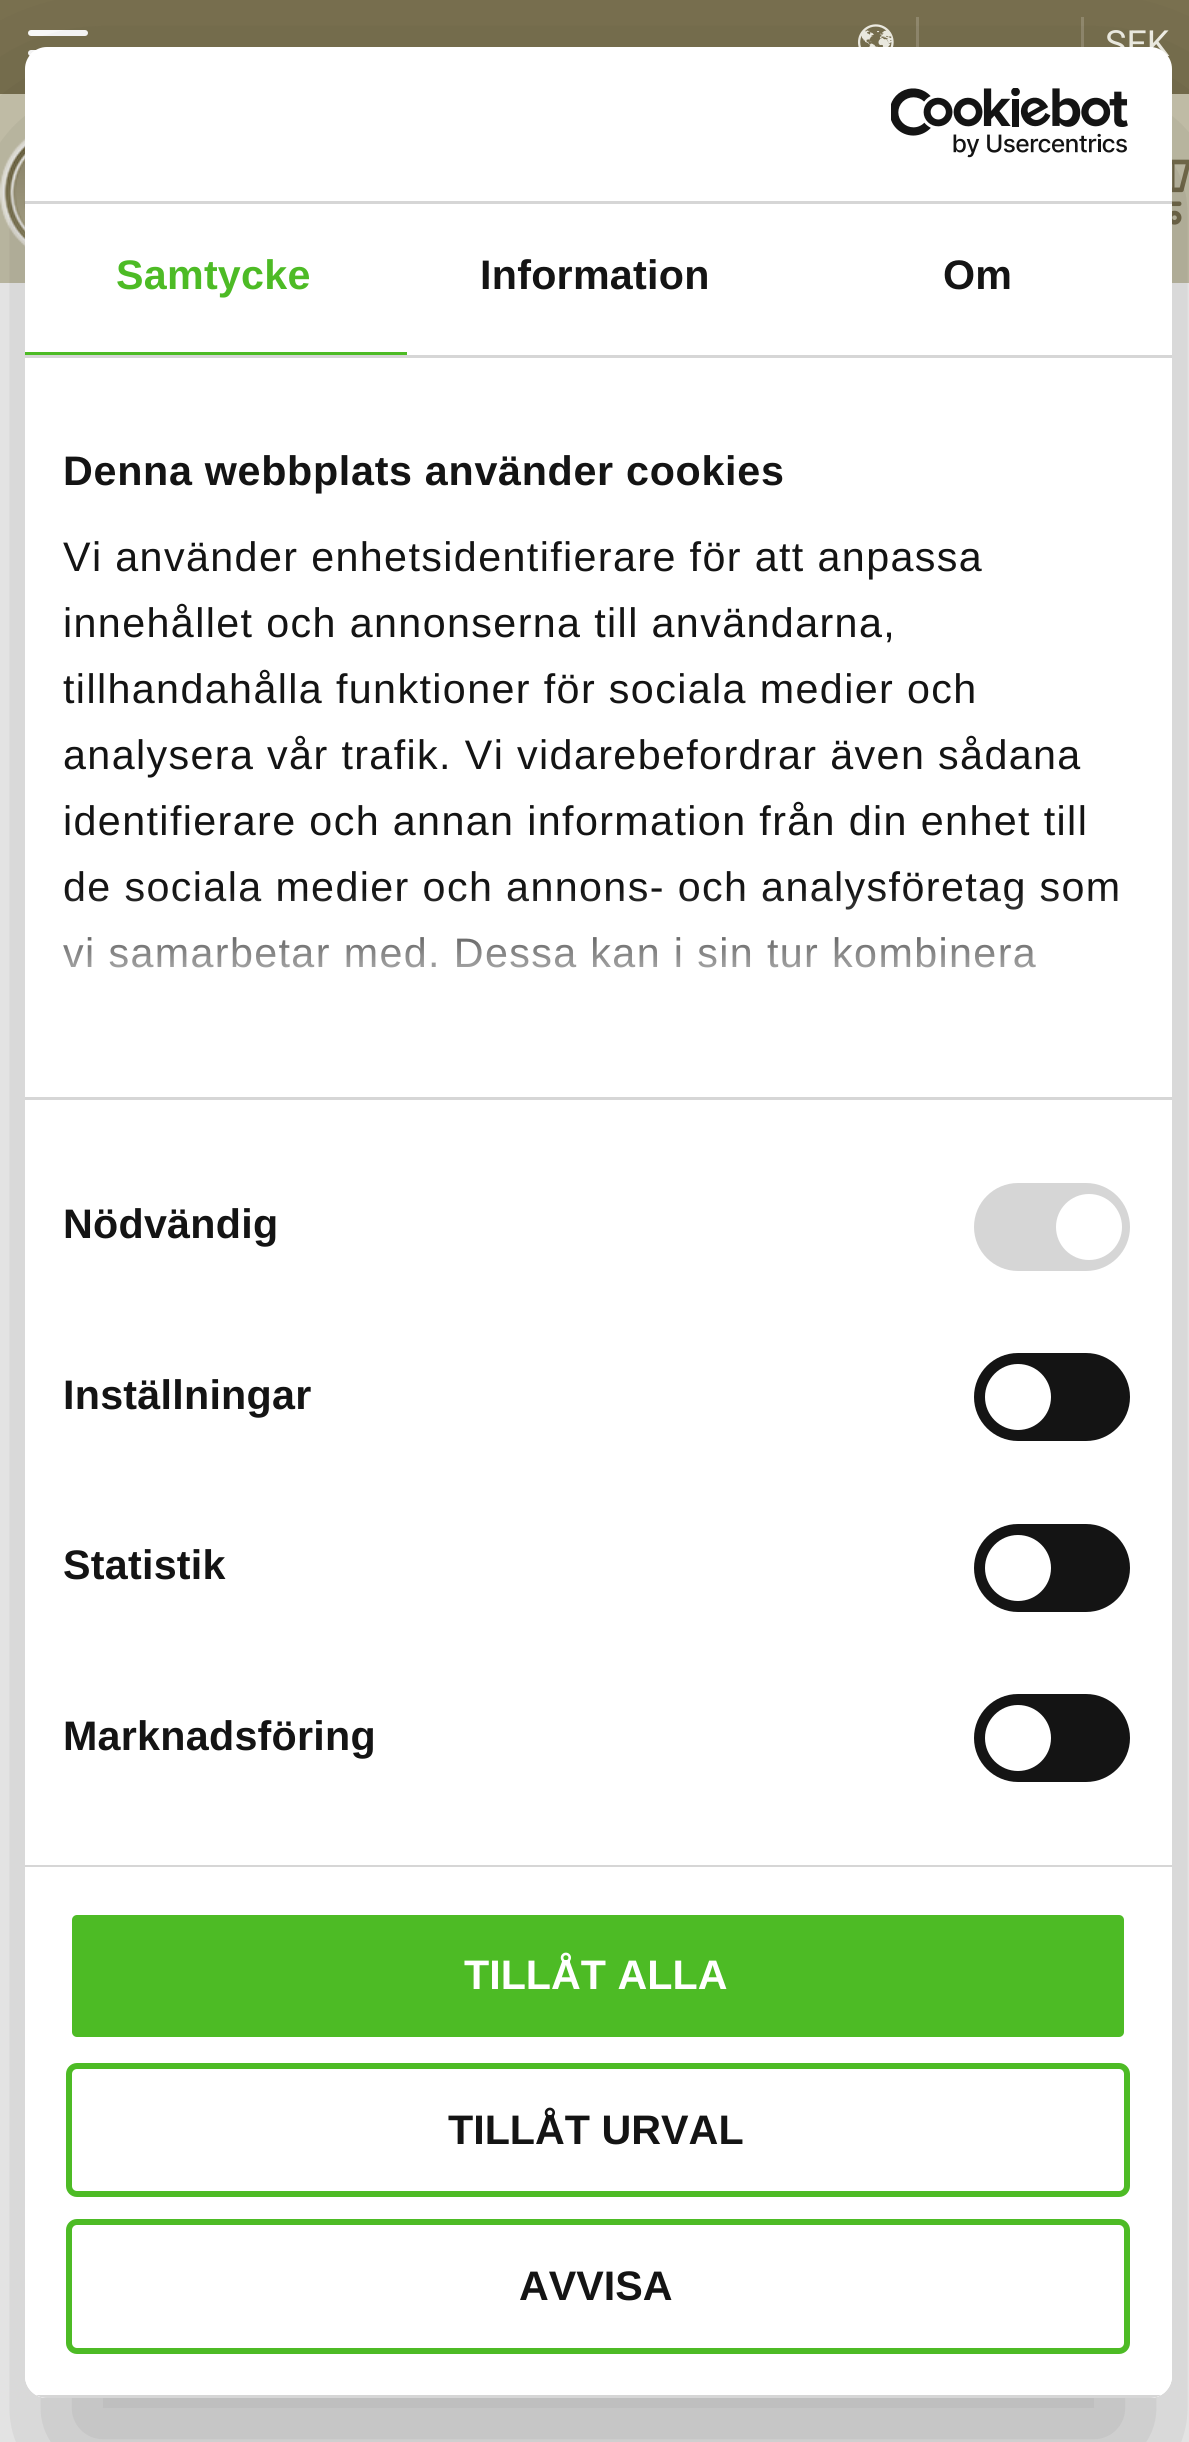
#include <cairo.h>
#include <math.h>
#include <stddef.h>

static cairo_t *c;
static void C(unsigned color){cairo_set_source_rgb(c, (color >> 16) / 255.0, (color >> 8 & 255) / 255.0, (color & 255) / 255.0);}
static void F(const char *family, double size, int italic, int bold){cairo_select_font_face(c, family, italic ? CAIRO_FONT_SLANT_ITALIC : CAIRO_FONT_SLANT_NORMAL,bold ? CAIRO_FONT_WEIGHT_BOLD : CAIRO_FONT_WEIGHT_NORMAL);cairo_set_font_size(c, size);}
static void T(double x, double y, const char *s){cairo_move_to(c, x, y);cairo_show_text(c, s);}
static void L(double x, double y, const char *s, double letter, double word){cairo_move_to(c, x, y);while (*s) {char ch[5] = {0};int n = 0;do ch[n++] = *s++; while ((*s & 0xC0) == 0x80);cairo_show_text(c, ch);cairo_rel_move_to(c, letter + word * (*ch == ' '), 0);}}
static void R(double x, double y, double w, double h){cairo_rectangle(c, x, y, w, h);cairo_fill(c);}
static void Q(double x, double y, double w, double h, double r){cairo_new_sub_path(c);cairo_arc(c, x + w - r, y + h - r, r, 0, M_PI / 2);cairo_arc(c, x + r, y + h - r, r, M_PI / 2, M_PI);cairo_arc(c, x + r, y + r, r, M_PI, 1.5 * M_PI);cairo_arc(c, x + w - r, y + r, r, 1.5 * M_PI, 2 * M_PI);cairo_close_path(c);}
static void S(double x, double y, double w, double h, double r, double blur, double alpha){cairo_push_group_with_content(c, CAIRO_CONTENT_ALPHA);cairo_set_operator(c, CAIRO_OPERATOR_SOURCE);for (int i = 15; i >= -15 && fmin(w, h) + blur * i / 3 > 0; i -= 2) {double e = blur * i / 6;cairo_set_source_rgba(c, 0, 0, 0, alpha * erfc((i - 1) / 8.5) / 2);Q(x - e, y - e, w + 2 * e, h + 2 * e, fmax(0, fmin(r + e + blur * .6, fmin(w, h) / 2 + e)));cairo_fill(c);}cairo_pattern_t *soft = cairo_pop_group(c);cairo_mask(c, soft);cairo_pattern_destroy(soft);}
static void I(const char *path, double x, double y, double w, double h){cairo_surface_t *image = cairo_image_surface_create_from_png(path);cairo_save(c);cairo_set_source_surface(c, image, x, y);cairo_rectangle(c, x, y, w, h);cairo_fill(c);cairo_restore(c);cairo_surface_destroy(image);}
int main(void) {
cairo_surface_t *surface = cairo_image_surface_create(CAIRO_FORMAT_RGB24, 1189, 2442);
c = cairo_create(surface);
cairo_font_options_t *options = cairo_font_options_create();
cairo_font_options_set_hint_metrics(options, CAIRO_HINT_METRICS_OFF);
cairo_font_options_set_hint_style(options, CAIRO_HINT_STYLE_NONE);
cairo_set_font_options(c, options);
cairo_set_miter_limit(c, 4);
cairo_pattern_t *gradient;
C(0xffffff);
cairo_paint(c);
C(0xcecab2);
R(0,94,1189,189);
C(0x7a7150);
R(0,0,1189,94);
C(0xffffff);
Q(28,50,60,6,3);
cairo_fill(c);
Q(28,30,60,6,3);
cairo_fill(c);
I("1.png",858,24,36,23);
C(0x938b6f);
R(916,17,3,30);
R(1081,17,3,30);
F("Roboto",36,0,0);
C(0xf5f3e9);
T(1105,56,"SEK");
I("2.png",0,138,25,109);
I("3.png",1172,159,17,66);
cairo_save(c);
cairo_set_fill_rule(c,CAIRO_FILL_RULE_EVEN_ODD);
cairo_new_path(c);
cairo_move_to(c,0,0);
cairo_line_to(c,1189,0);
cairo_line_to(c,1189,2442);
cairo_line_to(c,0,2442);
cairo_close_path(c);
cairo_move_to(c,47,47);
cairo_line_to(c,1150,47);
cairo_curve_to(c,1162,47,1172,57,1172,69);
cairo_line_to(c,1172,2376);
cairo_curve_to(c,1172,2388,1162,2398,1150,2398);
cairo_line_to(c,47,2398);
cairo_curve_to(c,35,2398,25,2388,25,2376);
cairo_line_to(c,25,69);
cairo_curve_to(c,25,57,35,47,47,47);
cairo_close_path(c);
cairo_clip(c);
C(0x000000);
S(25,135,1147,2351,22,93.5,.3);
cairo_restore(c);
C(0xffffff);
Q(25,47,1147,2351,22);
cairo_fill(c);
C(0xd6d6d6);
R(25,201,1147,3);
I("4.png",891,88,237,70);
R(25,355,1147,3);
C(0x4dbb25);
R(25,352,382,3);
F("Liberation Sans",41.25,0,1);
L(116,289,"Samtycke",.25,0);
C(0x141414);
L(480,289,"Information",.25,0);
L(943,289,"Om",.25,0);
C(0xd6d6d6);
R(25,1097,1147,3);
C(0x141414);
L(63,485,"Denna webbplats använder cookies",.7,0);
F("Liberation Sans",41.25,0,0);
L(63,571,"Vi använder enhetsidentifierare för att anpassa",1.38,0);
L(63,637,"innehållet och annonserna till användarna,",1.38,0);
L(63,703,"tillhandahålla funktioner för sociala medier och",1.38,0);
L(63,769,"analysera vår trafik. Vi vidarebefordrar även sådana",1.38,0);
L(63,835,"identifierare och annan information från din enhet till",1.38,0);
L(63,901,"de sociala medier och annons- och analysföretag som",1.38,0);
L(63,967,"vi samarbetar med. Dessa kan i sin tur kombinera",1.38,0);
gradient = cairo_pattern_create_linear(579,1097,579,890);
cairo_pattern_add_color_stop_rgba(gradient,0,1,1,1,1);
cairo_pattern_add_color_stop_rgba(gradient,.5,1,1,1,.8);
cairo_pattern_add_color_stop_rgba(gradient,1,1,1,1,0);
cairo_set_source(c,gradient);
cairo_pattern_destroy(gradient);
R(63,893,1055,75);
C(0xd6d6d6);
R(25,1865,1147,2);
F("Liberation Sans",41.25,0,1);
C(0x141414);
L(63,1238,"Nödvändig",.25,0);
C(0xd6d6d6);
Q(974,1183,156,88,44);
cairo_fill(c);
C(0xffffff);
cairo_arc(c,1089,1227,33,0,2 * M_PI);
cairo_fill(c);
C(0x141414);
L(63,1409,"Inställningar",.25,0);
Q(974,1353,156,88,44);
cairo_fill(c);
C(0xffffff);
cairo_arc(c,1018,1397,33,0,2 * M_PI);
cairo_fill(c);
C(0x141414);
L(63,1579,"Statistik",.25,0);
Q(974,1524,156,88,44);
cairo_fill(c);
C(0xffffff);
cairo_arc(c,1018,1568,33,0,2 * M_PI);
cairo_fill(c);
C(0x141414);
L(63,1750,"Marknadsföring",.25,0);
Q(974,1694,156,88,44);
cairo_fill(c);
C(0xffffff);
cairo_arc(c,1018,1738,33,0,2 * M_PI);
cairo_fill(c);
cairo_save(c);
Q(25,47,1147,2351,22);
cairo_clip(c);
C(0xd6d6d6);
R(36,2395,1125,3);
cairo_restore(c);
C(0x4dbb25);
Q(69,1912,1058,128,8);
cairo_fill_preserve(c);
C(0xffffff);
cairo_set_line_width(c,6);
cairo_stroke(c);
T(464,1989,"TILLÅT ALLA");
Q(69,2066,1058,128,8);
C(0x4dbb25);
cairo_stroke(c);
C(0x141414);
T(448,2144,"TILLÅT URVAL");
Q(69,2222,1058,129,8);
C(0x4dbb25);
cairo_stroke(c);
C(0x141414);
T(519,2300,"AVVISA");
cairo_surface_write_to_png(surface, "o.png");
cairo_font_options_destroy(options);
cairo_destroy(c);
cairo_surface_destroy(surface);
return 0;
}
